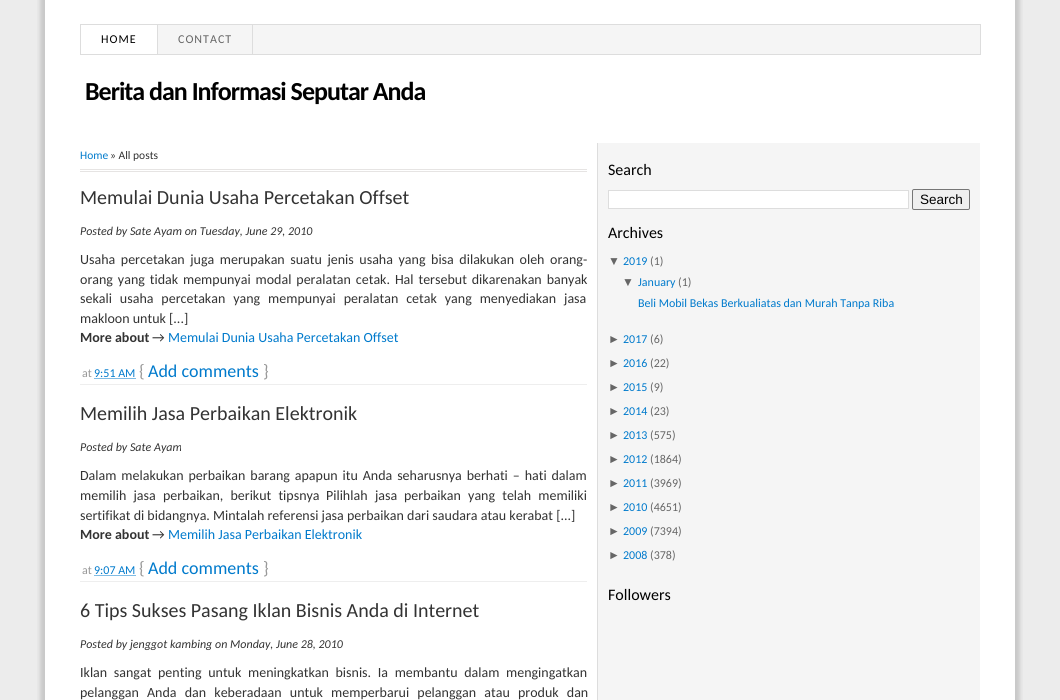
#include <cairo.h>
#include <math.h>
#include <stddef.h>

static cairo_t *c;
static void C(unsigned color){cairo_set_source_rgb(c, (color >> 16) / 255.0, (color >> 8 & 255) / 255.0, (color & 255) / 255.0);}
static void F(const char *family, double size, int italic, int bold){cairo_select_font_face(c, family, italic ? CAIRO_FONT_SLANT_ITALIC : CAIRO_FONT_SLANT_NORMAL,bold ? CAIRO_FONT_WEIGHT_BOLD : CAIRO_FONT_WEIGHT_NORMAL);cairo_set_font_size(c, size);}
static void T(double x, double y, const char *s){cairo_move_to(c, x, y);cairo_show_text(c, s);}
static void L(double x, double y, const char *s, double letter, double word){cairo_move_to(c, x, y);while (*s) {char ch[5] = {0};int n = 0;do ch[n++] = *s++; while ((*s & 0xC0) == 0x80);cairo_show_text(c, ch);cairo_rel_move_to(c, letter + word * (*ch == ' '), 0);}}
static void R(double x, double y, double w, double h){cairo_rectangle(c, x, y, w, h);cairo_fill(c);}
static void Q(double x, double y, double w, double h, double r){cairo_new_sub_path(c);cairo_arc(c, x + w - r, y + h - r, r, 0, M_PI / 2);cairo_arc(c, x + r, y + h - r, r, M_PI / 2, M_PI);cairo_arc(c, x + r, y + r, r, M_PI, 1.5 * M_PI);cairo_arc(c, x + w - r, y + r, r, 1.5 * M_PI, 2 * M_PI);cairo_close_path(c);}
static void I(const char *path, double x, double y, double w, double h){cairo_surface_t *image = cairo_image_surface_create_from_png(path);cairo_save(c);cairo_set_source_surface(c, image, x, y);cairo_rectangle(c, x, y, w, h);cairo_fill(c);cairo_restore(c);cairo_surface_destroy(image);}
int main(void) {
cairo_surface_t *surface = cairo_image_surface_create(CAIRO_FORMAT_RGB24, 1060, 700);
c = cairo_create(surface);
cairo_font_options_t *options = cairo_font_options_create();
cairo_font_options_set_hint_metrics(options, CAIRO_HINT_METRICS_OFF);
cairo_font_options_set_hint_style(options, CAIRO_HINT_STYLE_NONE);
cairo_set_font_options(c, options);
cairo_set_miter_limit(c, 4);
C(0xececec);
cairo_paint(c);
I("1.png",37,0,986,700);
C(0xf5f5f5);
R(158,25,822,29);
C(0xdddddd);
R(80,24,901,1);
R(980,24,1,31);
R(158,54,823,1);
R(80,25,1,30);
R(157,25,1,30);
R(81,54,77,1);
F("Carlito",12,0,0);
C(0x000000);
L(101,43,"HOME",1,0);
C(0xdddddd);
R(252,25,1,30);
C(0x666666);
L(178,43,"CONTACT",1,0);
F("Carlito",26,0,1);
C(0x000000);
L(85,100,"Berita dan Informasi Seputar Anda",-1,0);
C(0xe6e4e3);
R(80,169,507,1);
R(80,171,507,1);
F("Carlito",11.5,0,0);
C(0x007acc);
T(80,159,"Home");
C(0x333333);
T(110,159,"» All posts");
F("Carlito",20,0,0);
T(80,204,"Memulai Dunia Usaha Percetakan Offset");
F("Carlito",12,1,0);
T(80,235,"Posted by Sate Ayam on Tuesday, June 29, 2010");
F("Carlito",14,0,0);
L(80,264,"Usaha percetakan juga merupakan suatu jenis usaha yang bisa dilakukan oleh orang-",0,2.4);
L(80,284,"orang yang tidak mempunyai modal peralatan cetak. Hal tersebut dikarenakan banyak",0,1.75);
L(80,303,"sekali usaha percetakan yang mempunyai peralatan cetak yang menyediakan jasa",0,4.75);
T(80,323,"makloon untuk [...]");
F("Carlito",14,0,1);
T(80,342,"More about");
F("Carlito",14,0,0);
T(152,342,"→");
C(0x007acc);
T(168,342,"Memulai Dunia Usaha Percetakan Offset");
C(0xeeeeee);
R(80,384,507,1);
F("Carlito",12,0,0);
C(0x999999);
T(82,377,"at");
C(0x007acc);
T(94,377,"9:51 AM");
cairo_new_path(c);
cairo_move_to(c,94.5,378.5);
cairo_line_to(c,136,378.5);
cairo_set_line_width(c,1);
cairo_set_dash(c,(double[]){1,1},2,0);
cairo_stroke(c);
F("Carlito",18,0,0);
C(0x999999);
T(139,377,"{");
C(0x007acc);
T(148,377,"Add comments");
C(0x999999);
T(263,377,"}");
F("Carlito",20,0,0);
C(0x333333);
T(80,420,"Memilih Jasa Perbaikan Elektronik");
F("Carlito",12,1,0);
T(80,451,"Posted by Sate Ayam");
F("Carlito",14,0,0);
L(80,480,"Dalam melakukan perbaikan barang apapun itu Anda seharusnya berhati – hati dalam",0,1.75);
L(80,500,"memilih jasa perbaikan, berikut tipsnya",0,4);
T(326,500,"Pilihlah");
T(375,500,"jasa");
L(404,500,"perbaikan yang telah memiliki",0,4);
T(80,520,"sertifikat di bidangnya. Mintalah referensi jasa perbaikan dari saudara atau kerabat [...]");
F("Carlito",14,0,1);
T(80,539,"More about");
F("Carlito",14,0,0);
T(152,539,"→");
C(0x007acc);
T(168,539,"Memilih Jasa Perbaikan Elektronik");
C(0xeeeeee);
R(80,581,507,1);
F("Carlito",12,0,0);
C(0x999999);
T(82,574,"at");
C(0x007acc);
T(94,574,"9:07 AM");
cairo_new_path(c);
cairo_move_to(c,94.5,575.5);
cairo_line_to(c,136,575.5);
cairo_stroke(c);
F("Carlito",18,0,0);
C(0x999999);
T(139,574,"{");
C(0x007acc);
T(148,574,"Add comments");
C(0x999999);
T(263,574,"}");
F("Carlito",20,0,0);
C(0x333333);
T(80,617,"6 Tips Sukses Pasang Iklan Bisnis Anda di Internet");
F("Carlito",12,1,0);
T(80,648,"Posted by jenggot kambing on Monday, June 28, 2010");
F("Carlito",14,0,0);
L(80,677,"Iklan sangat penting untuk meningkatkan bisnis. Ia membantu dalam mengingatkan",0,3.5);
L(80,697,"pelanggan Anda dan keberadaan untuk memperbarui pelanggan atau produk dan",0,5);
C(0xf5f5f5);
R(598,143,382,557);
C(0xdddddd);
R(597,143,1,557);
F("Carlito",16,0,0);
C(0x000000);
T(608,175,"Search");
C(0xffffff);
cairo_rectangle(c,608.5,190.5,300,18);
cairo_fill_preserve(c);
C(0xdddddd);
cairo_set_dash(c,NULL,0,0);
cairo_stroke(c);
C(0xefefef);
Q(912.5,189.5,57,20,1.5);
cairo_fill_preserve(c);
C(0x767676);
cairo_stroke(c);
F("Liberation Sans",13.5,0,0);
C(0x000000);
T(920,204,"Search");
F("Carlito",16,0,0);
T(608,238,"Archives");
F("Liberation Sans",12,0,0);
C(0x666666);
T(608,265,"▼");
F("Carlito",12,0,0);
C(0x007acc);
T(623,265,"2019");
C(0x666666);
T(650,265,"(1)");
F("Liberation Sans",12,0,0);
T(622,286,"▼");
F("Carlito",12,0,0);
C(0x007acc);
T(638,286,"January");
C(0x666666);
T(678,286,"(1)");
C(0x007acc);
T(638,307,"Beli Mobil Bekas Berkualiatas dan Murah Tanpa Riba");
F("Liberation Sans",12,0,0);
C(0x666666);
T(608,343,"►");
F("Carlito",12,0,0);
C(0x007acc);
T(623,343,"2017");
C(0x666666);
T(650,343,"(6)");
F("Liberation Sans",12,0,0);
T(608,367,"►");
F("Carlito",12,0,0);
C(0x007acc);
T(623,367,"2016");
C(0x666666);
T(650,367,"(22)");
F("Liberation Sans",12,0,0);
T(608,391,"►");
F("Carlito",12,0,0);
C(0x007acc);
T(623,391,"2015");
C(0x666666);
T(650,391,"(9)");
F("Liberation Sans",12,0,0);
T(608,415,"►");
F("Carlito",12,0,0);
C(0x007acc);
T(623,415,"2014");
C(0x666666);
T(650,415,"(23)");
F("Liberation Sans",12,0,0);
T(608,439,"►");
F("Carlito",12,0,0);
C(0x007acc);
T(623,439,"2013");
C(0x666666);
T(650,439,"(575)");
F("Liberation Sans",12,0,0);
T(608,463,"►");
F("Carlito",12,0,0);
C(0x007acc);
T(623,463,"2012");
C(0x666666);
T(650,463,"(1864)");
F("Liberation Sans",12,0,0);
T(608,487,"►");
F("Carlito",12,0,0);
C(0x007acc);
T(623,487,"2011");
C(0x666666);
T(650,487,"(3969)");
F("Liberation Sans",12,0,0);
T(608,511,"►");
F("Carlito",12,0,0);
C(0x007acc);
T(623,511,"2010");
C(0x666666);
T(650,511,"(4651)");
F("Liberation Sans",12,0,0);
T(608,535,"►");
F("Carlito",12,0,0);
C(0x007acc);
T(623,535,"2009");
C(0x666666);
T(650,535,"(7394)");
F("Liberation Sans",12,0,0);
T(608,559,"►");
F("Carlito",12,0,0);
C(0x007acc);
T(623,559,"2008");
C(0x666666);
T(650,559,"(378)");
F("Carlito",16,0,0);
C(0x000000);
T(608,600,"Followers");
cairo_surface_write_to_png(surface, "o.png");
cairo_font_options_destroy(options);
cairo_destroy(c);
cairo_surface_destroy(surface);
return 0;
}
